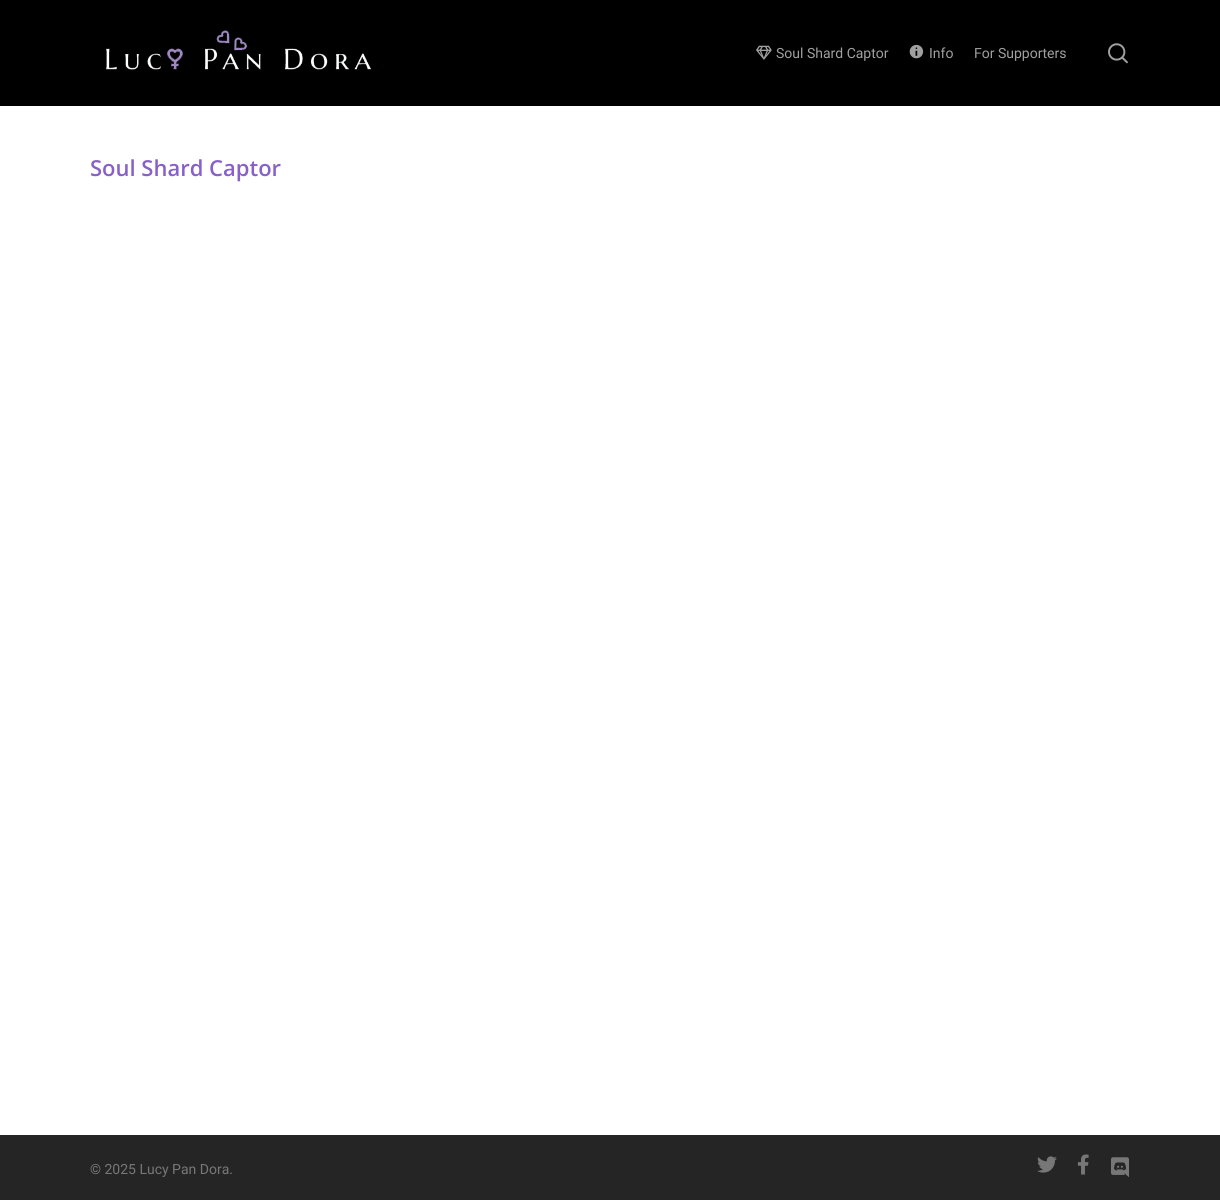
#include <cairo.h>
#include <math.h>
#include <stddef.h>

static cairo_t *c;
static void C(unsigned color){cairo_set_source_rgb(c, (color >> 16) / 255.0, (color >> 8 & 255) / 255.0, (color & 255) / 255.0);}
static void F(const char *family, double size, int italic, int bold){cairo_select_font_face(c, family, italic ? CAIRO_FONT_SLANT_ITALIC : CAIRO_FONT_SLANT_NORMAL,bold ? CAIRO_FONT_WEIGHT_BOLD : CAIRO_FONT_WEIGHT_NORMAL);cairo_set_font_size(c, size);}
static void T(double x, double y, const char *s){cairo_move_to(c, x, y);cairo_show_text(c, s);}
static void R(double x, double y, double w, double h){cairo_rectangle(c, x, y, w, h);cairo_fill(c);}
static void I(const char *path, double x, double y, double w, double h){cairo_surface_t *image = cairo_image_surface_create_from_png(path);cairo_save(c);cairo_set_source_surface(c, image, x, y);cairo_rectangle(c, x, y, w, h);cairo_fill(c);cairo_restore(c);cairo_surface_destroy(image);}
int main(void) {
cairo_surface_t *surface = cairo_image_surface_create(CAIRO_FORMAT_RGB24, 1220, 1200);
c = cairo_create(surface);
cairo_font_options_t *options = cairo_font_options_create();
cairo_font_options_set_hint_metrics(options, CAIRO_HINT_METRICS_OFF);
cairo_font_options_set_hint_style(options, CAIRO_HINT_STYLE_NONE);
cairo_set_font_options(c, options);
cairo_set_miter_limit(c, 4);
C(0xffffff);
cairo_paint(c);
C(0x000000);
R(0,0,1220,106);
I("1.png",106,30,278,40);
I("2.png",756,45,16,15);
F("Roboto",14,0,0);
C(0xa0a0a0);
T(776,58,"Soul Shard Captor");
I("3.png",909,44,15,15);
T(929,58,"Info");
T(974,58,"For Supporters");
I("4.png",1108,43,20,21);
F("Open Sans SemiBold",22,0,0);
C(0x8860ca);
T(90,176,"Soul Shard Captor");
C(0x252525);
R(0,1135,1220,65);
F("Roboto",14,0,0);
C(0x777777);
T(90,1174,"© 2025 Lucy Pan Dora.");
I("5.png",1037,1156,20,17);
I("6.png",1077,1154,12,21);
I("7.png",1111,1157,18,20);
cairo_surface_write_to_png(surface, "o.png");
cairo_font_options_destroy(options);
cairo_destroy(c);
cairo_surface_destroy(surface);
return 0;
}
